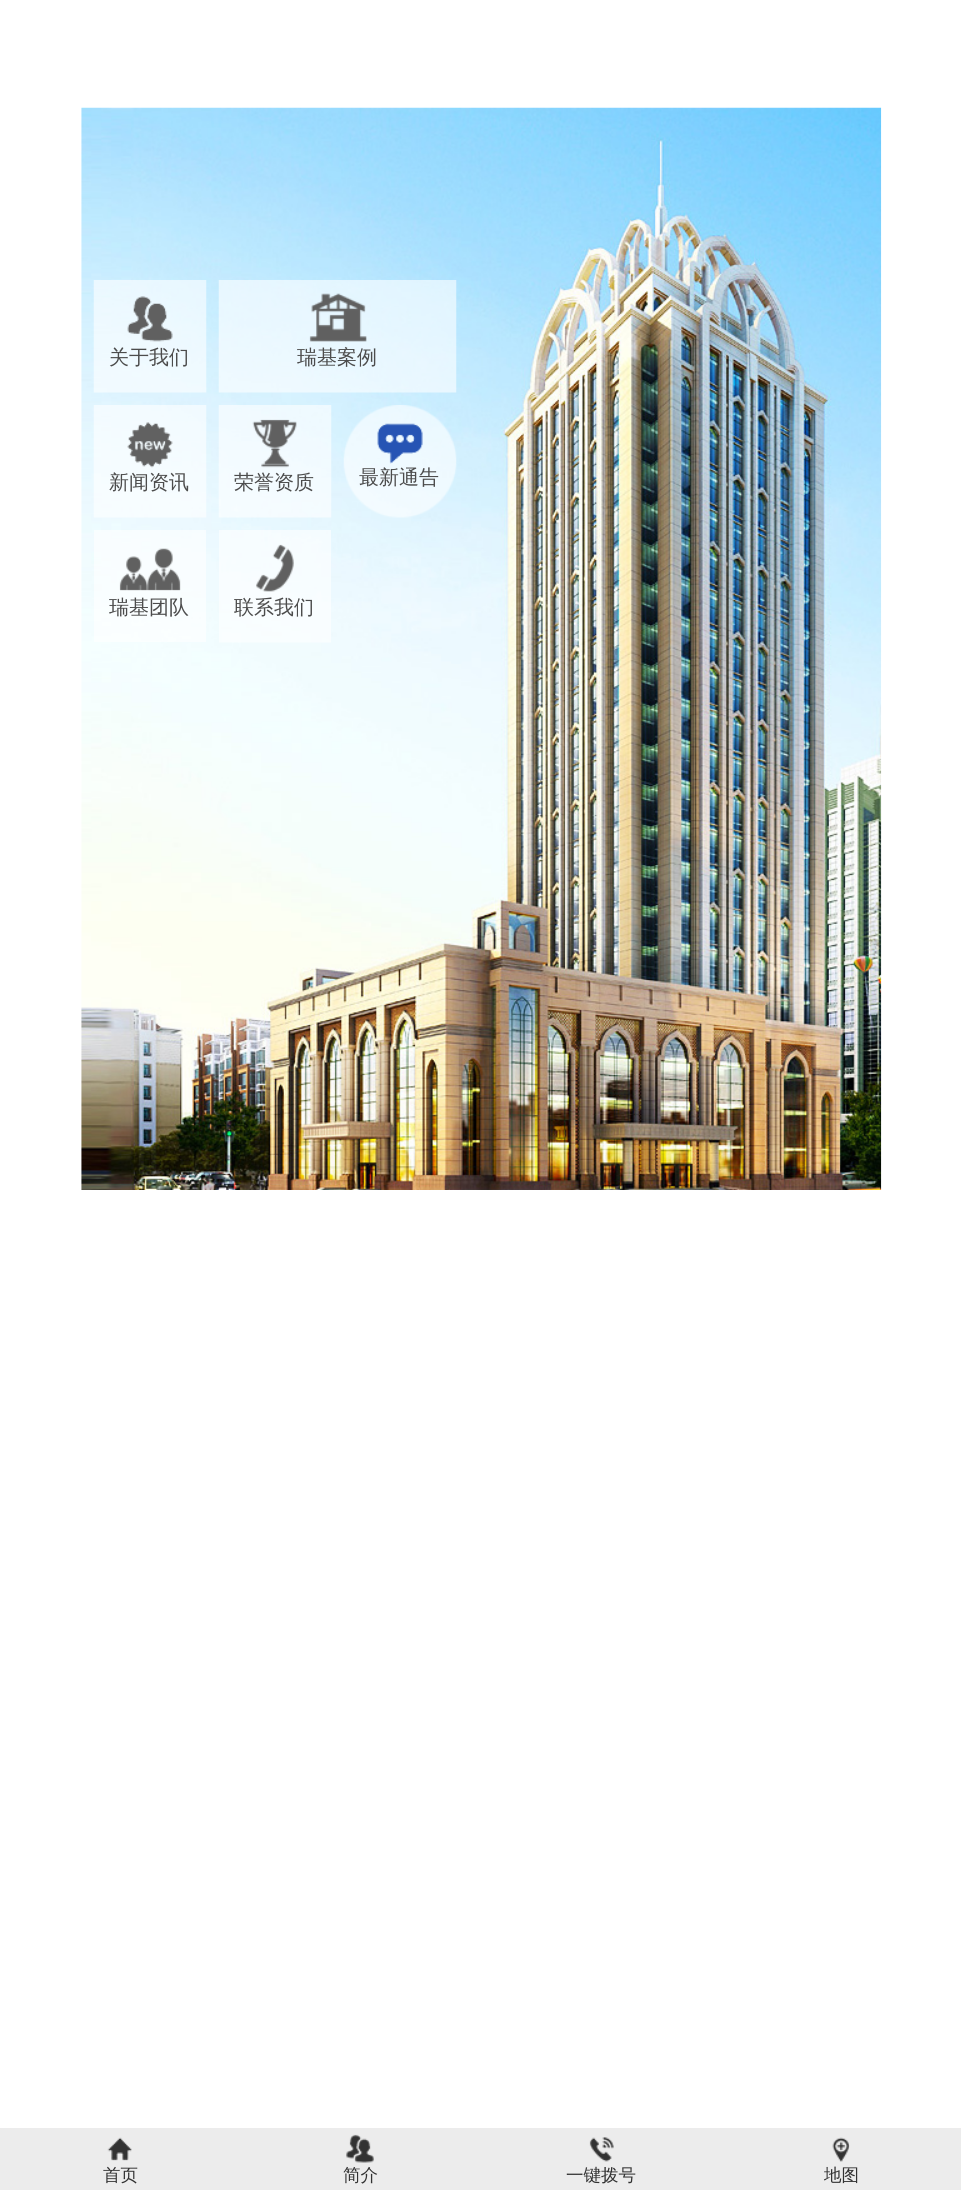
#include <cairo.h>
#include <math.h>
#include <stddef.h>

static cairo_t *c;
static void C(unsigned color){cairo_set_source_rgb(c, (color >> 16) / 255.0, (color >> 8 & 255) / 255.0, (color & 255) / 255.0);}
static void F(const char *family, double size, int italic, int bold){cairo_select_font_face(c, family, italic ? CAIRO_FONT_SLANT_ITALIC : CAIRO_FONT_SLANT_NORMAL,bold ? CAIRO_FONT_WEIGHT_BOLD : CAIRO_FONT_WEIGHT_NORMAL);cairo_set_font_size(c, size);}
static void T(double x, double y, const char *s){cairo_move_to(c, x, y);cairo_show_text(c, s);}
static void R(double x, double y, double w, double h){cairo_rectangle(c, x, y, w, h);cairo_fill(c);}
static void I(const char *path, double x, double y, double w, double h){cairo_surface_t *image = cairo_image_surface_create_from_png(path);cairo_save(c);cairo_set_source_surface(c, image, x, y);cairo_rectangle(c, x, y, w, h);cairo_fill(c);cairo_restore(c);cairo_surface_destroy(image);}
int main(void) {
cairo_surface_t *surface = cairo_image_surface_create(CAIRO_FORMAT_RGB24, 961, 2190);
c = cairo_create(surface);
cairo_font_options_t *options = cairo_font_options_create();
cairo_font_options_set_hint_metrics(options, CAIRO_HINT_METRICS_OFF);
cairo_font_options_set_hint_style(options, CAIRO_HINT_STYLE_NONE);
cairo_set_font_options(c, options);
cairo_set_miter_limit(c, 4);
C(0xffffff);
cairo_paint(c);
I("1.png",81,107,801,1083);
I("2.png",93,280,114,113);
F("WenQuanYi Zen Hei Medium",20,0,0);
C(0x4c4c4c);
T(109,364,"关于我们");
I("3.png",218,280,239,113);
T(297,364,"瑞基案例");
I("4.png",93,405,114,113);
T(109,489,"新闻资讯");
I("5.png",218,405,114,113);
T(234,489,"荣誉资质");
I("6.png",343,405,114,113);
T(359,484,"最新通告");
I("7.png",94,530,112,112);
T(109,614,"瑞基团队");
I("8.png",219,530,112,113);
T(234,614,"联系我们");
C(0xececec);
R(0,2128,961,62);
I("9.png",107,2137,25,24);
F("WenQuanYi Zen Hei Medium",17.5,0,0);
C(0x323232);
T(103,2181,"首页");
I("10.png",346,2134,28,29);
T(343,2181,"简介");
I("11.png",589,2137,25,25);
T(566,2181,"一键拨号");
I("12.png",832,2137,18,25);
T(824,2181,"地图");
cairo_surface_write_to_png(surface, "o.png");
cairo_font_options_destroy(options);
cairo_destroy(c);
cairo_surface_destroy(surface);
return 0;
}
